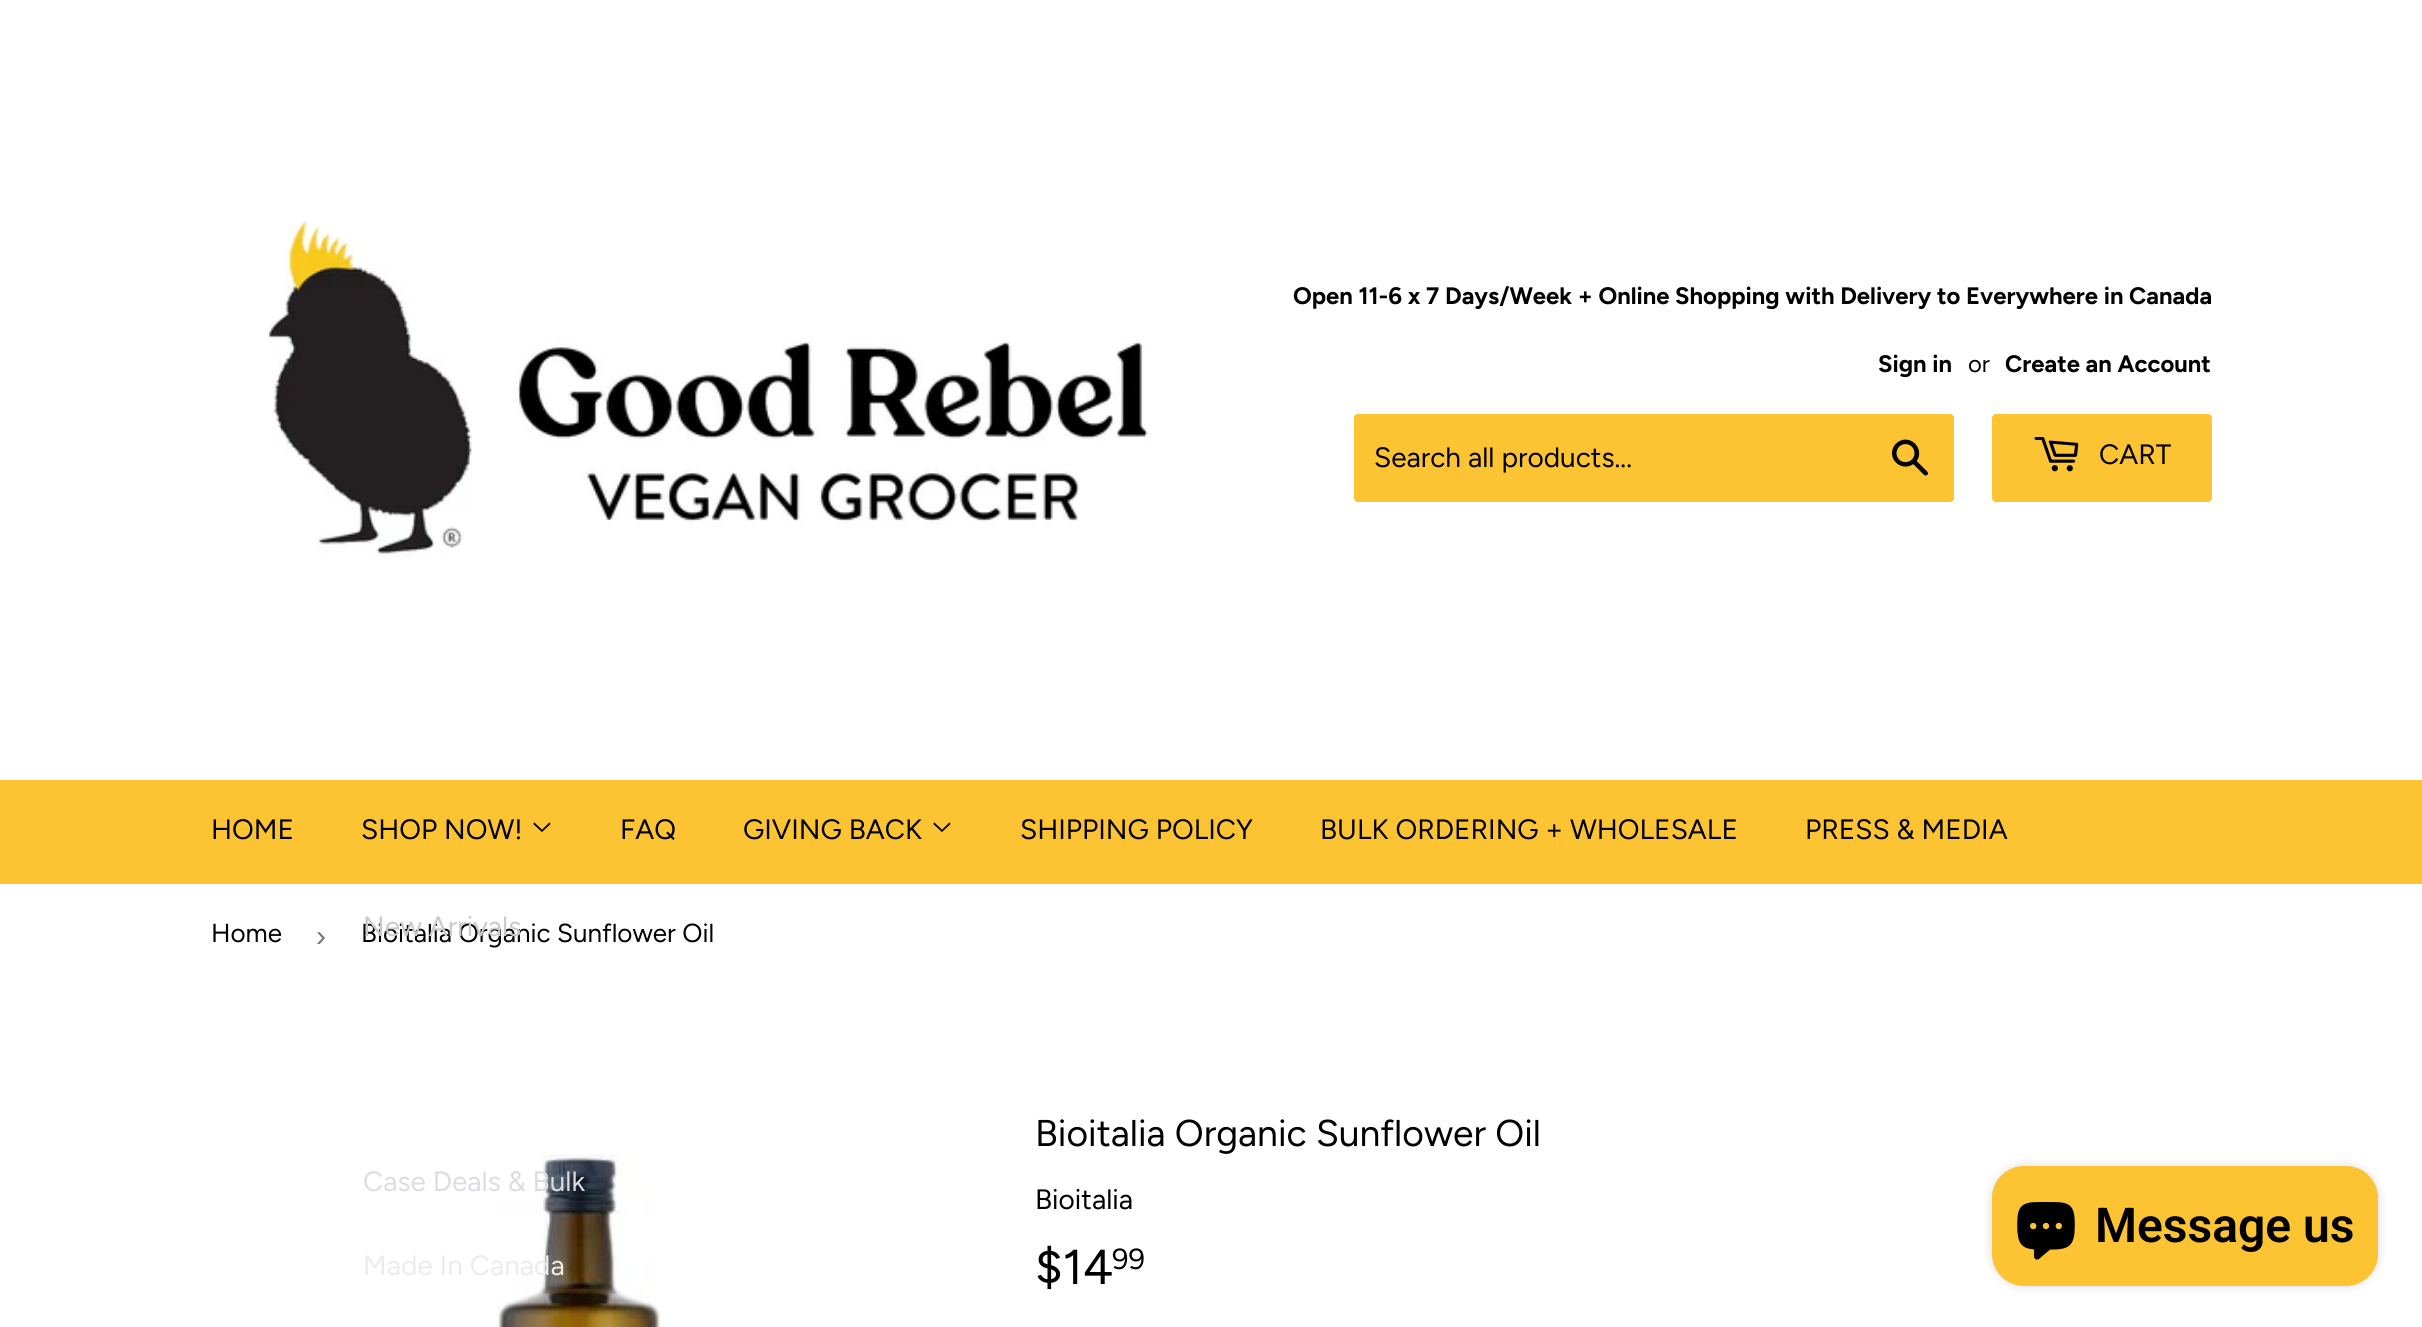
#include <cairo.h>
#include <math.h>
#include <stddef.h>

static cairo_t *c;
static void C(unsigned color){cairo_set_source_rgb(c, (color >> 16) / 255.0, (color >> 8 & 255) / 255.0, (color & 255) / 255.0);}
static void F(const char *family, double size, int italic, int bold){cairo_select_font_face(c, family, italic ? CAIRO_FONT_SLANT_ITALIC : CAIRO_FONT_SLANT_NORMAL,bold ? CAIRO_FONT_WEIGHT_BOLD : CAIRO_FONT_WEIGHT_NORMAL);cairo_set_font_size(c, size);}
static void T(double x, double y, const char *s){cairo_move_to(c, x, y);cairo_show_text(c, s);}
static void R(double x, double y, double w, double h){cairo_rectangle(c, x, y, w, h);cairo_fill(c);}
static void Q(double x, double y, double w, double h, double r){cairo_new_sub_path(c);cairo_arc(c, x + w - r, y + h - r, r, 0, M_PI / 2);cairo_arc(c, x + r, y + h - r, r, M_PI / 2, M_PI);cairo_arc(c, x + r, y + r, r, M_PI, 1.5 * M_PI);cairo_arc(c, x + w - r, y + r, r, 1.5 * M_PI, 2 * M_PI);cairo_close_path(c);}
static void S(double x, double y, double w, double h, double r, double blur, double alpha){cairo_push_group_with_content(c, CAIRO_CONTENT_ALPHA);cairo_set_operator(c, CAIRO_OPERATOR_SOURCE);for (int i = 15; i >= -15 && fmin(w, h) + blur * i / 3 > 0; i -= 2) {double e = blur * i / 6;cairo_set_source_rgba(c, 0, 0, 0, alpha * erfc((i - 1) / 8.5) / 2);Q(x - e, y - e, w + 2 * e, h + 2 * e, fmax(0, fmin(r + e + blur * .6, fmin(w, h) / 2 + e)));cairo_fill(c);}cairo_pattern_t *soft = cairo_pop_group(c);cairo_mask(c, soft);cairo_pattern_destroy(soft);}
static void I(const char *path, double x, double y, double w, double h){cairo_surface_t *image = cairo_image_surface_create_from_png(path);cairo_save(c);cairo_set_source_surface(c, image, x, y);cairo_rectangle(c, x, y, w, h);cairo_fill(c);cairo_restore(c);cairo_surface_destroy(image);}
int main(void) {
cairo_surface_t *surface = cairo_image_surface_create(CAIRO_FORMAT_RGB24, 2422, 1327);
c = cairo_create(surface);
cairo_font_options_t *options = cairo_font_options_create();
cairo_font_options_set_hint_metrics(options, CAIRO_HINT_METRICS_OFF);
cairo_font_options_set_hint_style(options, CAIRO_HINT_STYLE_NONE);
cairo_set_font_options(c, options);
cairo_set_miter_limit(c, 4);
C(0xffffff);
cairo_paint(c);
I("1.png",266,220,885,337);
F("Figtree",23.8,0,1);
C(0x000000);
T(1293,304,"Open 11-6 x 7 Days/Week + Online Shopping with Delivery to Everywhere in Canada");
T(1878,372,"Sign in");
F("Figtree",23.8,0,0);
T(1968,372,"or");
F("Figtree",23.8,0,1);
T(2005,372,"Create an Account");
C(0xfcc333);
Q(1354,414,600,88,4);
cairo_fill(c);
F("Figtree",28,0,0);
C(0x000000);
T(1374,467,"Search all products...");
I("2.png",1892,439,36,37);
C(0xfcc333);
Q(1992,414,220,88,4);
cairo_fill(c);
I("3.png",2034,437,45,35);
C(0x000000);
T(2099,464,"CART");
C(0xfcc333);
R(0,780,2422,104);
C(0x000000);
T(211,839,"HOME");
T(361,839,"SHOP NOW!");
I("4.png",533,822,18,10);
F("Figtree",26,0,0);
T(361,942,"Bioitalia Organic Sunflower Oil");
F("Figtree",28,0,0);
C(0xcacaca);
T(363,936,"New Arrivals");
I("5.png",497,1154,163,173);
C(0xdbdde0);
T(363,1191,"Case Deals & Bulk");
C(0xeeeceb);
T(363,1275,"Made In Canada");
C(0x000000);
T(620,839,"FAQ");
T(743,839,"GIVING BACK");
I("4.png",933,822,18,10);
T(1020,839,"SHIPPING POLICY");
T(1320,839,"BULK ORDERING + WHOLESALE");
T(1805,839,"PRESS & MEDIA");
F("Figtree",26,0,0);
T(211,942,"Home");
F("Liberation Sans",30,0,0);
C(0x767676);
T(316,946,"›");
F("Figtree",37.25,0,0);
C(0x000000);
T(1035,1146,"Bioitalia Organic Sunflower Oil");
F("Figtree",28,0,0);
T(1035,1209,"Bioitalia");
F("Figtree",49,0,0);
T(1035,1284,"$14");
F("Figtree",29,0,0);
T(1112,1269,"99");
C(0x000000);
S(1992,1166,386,120,32,5,.15);
C(0xfcc333);
Q(1992,1166,386,120,32);
cairo_fill(c);
I("6.png",2017,1202,58,58);
F("Roboto SemiBold",48,0,0);
C(0x000000);
T(2095,1242,"Message us");
cairo_surface_write_to_png(surface, "o.png");
cairo_font_options_destroy(options);
cairo_destroy(c);
cairo_surface_destroy(surface);
return 0;
}
